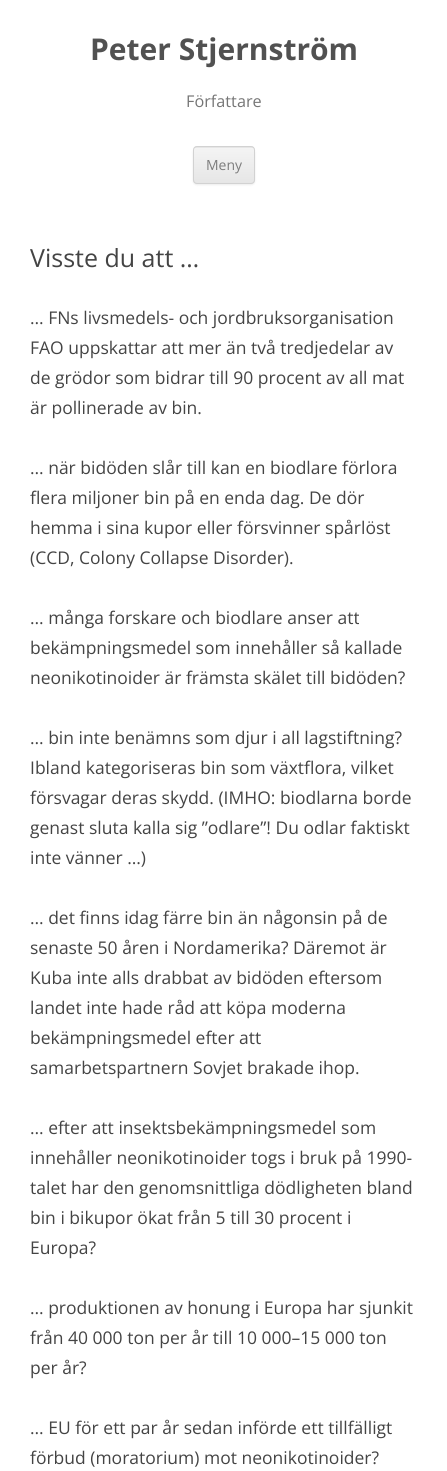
#include <cairo.h>
#include <math.h>
#include <stddef.h>

static cairo_t *c;
static void C(unsigned color){cairo_set_source_rgb(c, (color >> 16) / 255.0, (color >> 8 & 255) / 255.0, (color & 255) / 255.0);}
static void F(const char *family, double size, int italic, int bold){cairo_select_font_face(c, family, italic ? CAIRO_FONT_SLANT_ITALIC : CAIRO_FONT_SLANT_NORMAL,bold ? CAIRO_FONT_WEIGHT_BOLD : CAIRO_FONT_WEIGHT_NORMAL);cairo_set_font_size(c, size);}
static void T(double x, double y, const char *s){cairo_move_to(c, x, y);cairo_show_text(c, s);}
static void R(double x, double y, double w, double h){cairo_rectangle(c, x, y, w, h);cairo_fill(c);}
static void Q(double x, double y, double w, double h, double r){cairo_new_sub_path(c);cairo_arc(c, x + w - r, y + h - r, r, 0, M_PI / 2);cairo_arc(c, x + r, y + h - r, r, M_PI / 2, M_PI);cairo_arc(c, x + r, y + r, r, M_PI, 1.5 * M_PI);cairo_arc(c, x + w - r, y + r, r, 1.5 * M_PI, 2 * M_PI);cairo_close_path(c);}
static void S(double x, double y, double w, double h, double r, double blur, double alpha){cairo_push_group_with_content(c, CAIRO_CONTENT_ALPHA);cairo_set_operator(c, CAIRO_OPERATOR_SOURCE);for (int i = 15; i >= -15 && fmin(w, h) + blur * i / 3 > 0; i -= 2) {double e = blur * i / 6;cairo_set_source_rgba(c, 0, 0, 0, alpha * erfc((i - 1) / 8.5) / 2);Q(x - e, y - e, w + 2 * e, h + 2 * e, fmax(0, fmin(r + e + blur * .6, fmin(w, h) / 2 + e)));cairo_fill(c);}cairo_pattern_t *soft = cairo_pop_group(c);cairo_mask(c, soft);cairo_pattern_destroy(soft);}
int main(void) {
cairo_surface_t *surface = cairo_image_surface_create(CAIRO_FORMAT_RGB24, 447, 1471);
c = cairo_create(surface);
cairo_font_options_t *options = cairo_font_options_create();
cairo_font_options_set_hint_metrics(options, CAIRO_HINT_METRICS_OFF);
cairo_font_options_set_hint_style(options, CAIRO_HINT_STYLE_NONE);
cairo_set_font_options(c, options);
cairo_set_miter_limit(c, 4);
cairo_pattern_t *gradient;
C(0xffffff);
cairo_paint(c);
F("Open Sans",30,0,1);
C(0x515151);
T(90,60,"Peter Stjernström");
F("Open Sans",16.25,0,0);
C(0x757575);
T(186,107,"Författare");
C(0x404040);
S(193,148,62,37,4,1,.1);
C(0xe6e6e6);
Q(193,146,62,38,4);
cairo_fill(c);
cairo_save(c);
Q(193,146,62,38,4);
cairo_clip(c);
gradient = cairo_pattern_create_linear(224,148,224,183);
cairo_pattern_add_color_stop_rgba(gradient,0,0.957,0.957,0.957,1);
cairo_pattern_add_color_stop_rgba(gradient,1,0.902,0.902,0.902,1);
cairo_set_source(c,gradient);
cairo_pattern_destroy(gradient);
R(193,148,62,35);
cairo_restore(c);
Q(193.5,146.5,61,37,3.5);
C(0xd2d2d2);
cairo_set_line_width(c,1);
cairo_stroke(c);
F("Open Sans",14,0,0);
C(0x7c7c7c);
T(206,170,"Meny");
F("Open Sans",25,0,0);
C(0x444444);
T(30,267,"Visste du att …");
F("Open Sans",17.5,0,0);
T(30,324,"… FNs livsmedels- och jordbruksorganisation");
T(30,354,"FAO uppskattar att mer än två tredjedelar av");
T(30,384,"de grödor som bidrar till 90 procent av all mat");
T(30,414,"är pollinerade av bin.");
T(30,474,"… när bidöden slår till kan en biodlare förlora");
T(30,504,"flera miljoner bin på en enda dag. De dör");
T(30,534,"hemma i sina kupor eller försvinner spårlöst");
T(30,564,"(CCD, Colony Collapse Disorder).");
T(30,624,"… många forskare och biodlare anser att");
T(30,654,"bekämpningsmedel som innehåller så kallade");
T(30,684,"neonikotinoider är främsta skälet till bidöden?");
T(30,744,"… bin inte benämns som djur i all lagstiftning?");
T(30,774,"Ibland kategoriseras bin som växtflora, vilket");
T(30,804,"försvagar deras skydd. (IMHO: biodlarna borde");
T(30,834,"genast sluta kalla sig ”odlare”! Du odlar faktiskt");
T(30,864,"inte vänner …)");
T(30,924,"… det finns idag färre bin än någonsin på de");
T(30,954,"senaste 50 åren i Nordamerika? Däremot är");
T(30,984,"Kuba inte alls drabbat av bidöden eftersom");
T(30,1014,"landet inte hade råd att köpa moderna");
T(30,1044,"bekämpningsmedel efter att");
T(30,1074,"samarbetspartnern Sovjet brakade ihop.");
T(30,1134,"… efter att insektsbekämpningsmedel som");
T(30,1164,"innehåller neonikotinoider togs i bruk på 1990-");
T(30,1194,"talet har den genomsnittliga dödligheten bland");
T(30,1224,"bin i bikupor ökat från 5 till 30 procent i");
T(30,1254,"Europa?");
T(30,1314,"… produktionen av honung i Europa har sjunkit");
T(30,1344,"från 40 000 ton per år till 10 000–15 000 ton");
T(30,1374,"per år?");
T(30,1434,"… EU för ett par år sedan införde ett tillfälligt");
T(30,1464,"förbud (moratorium) mot neonikotinoider?");
cairo_surface_write_to_png(surface, "o.png");
cairo_font_options_destroy(options);
cairo_destroy(c);
cairo_surface_destroy(surface);
return 0;
}
